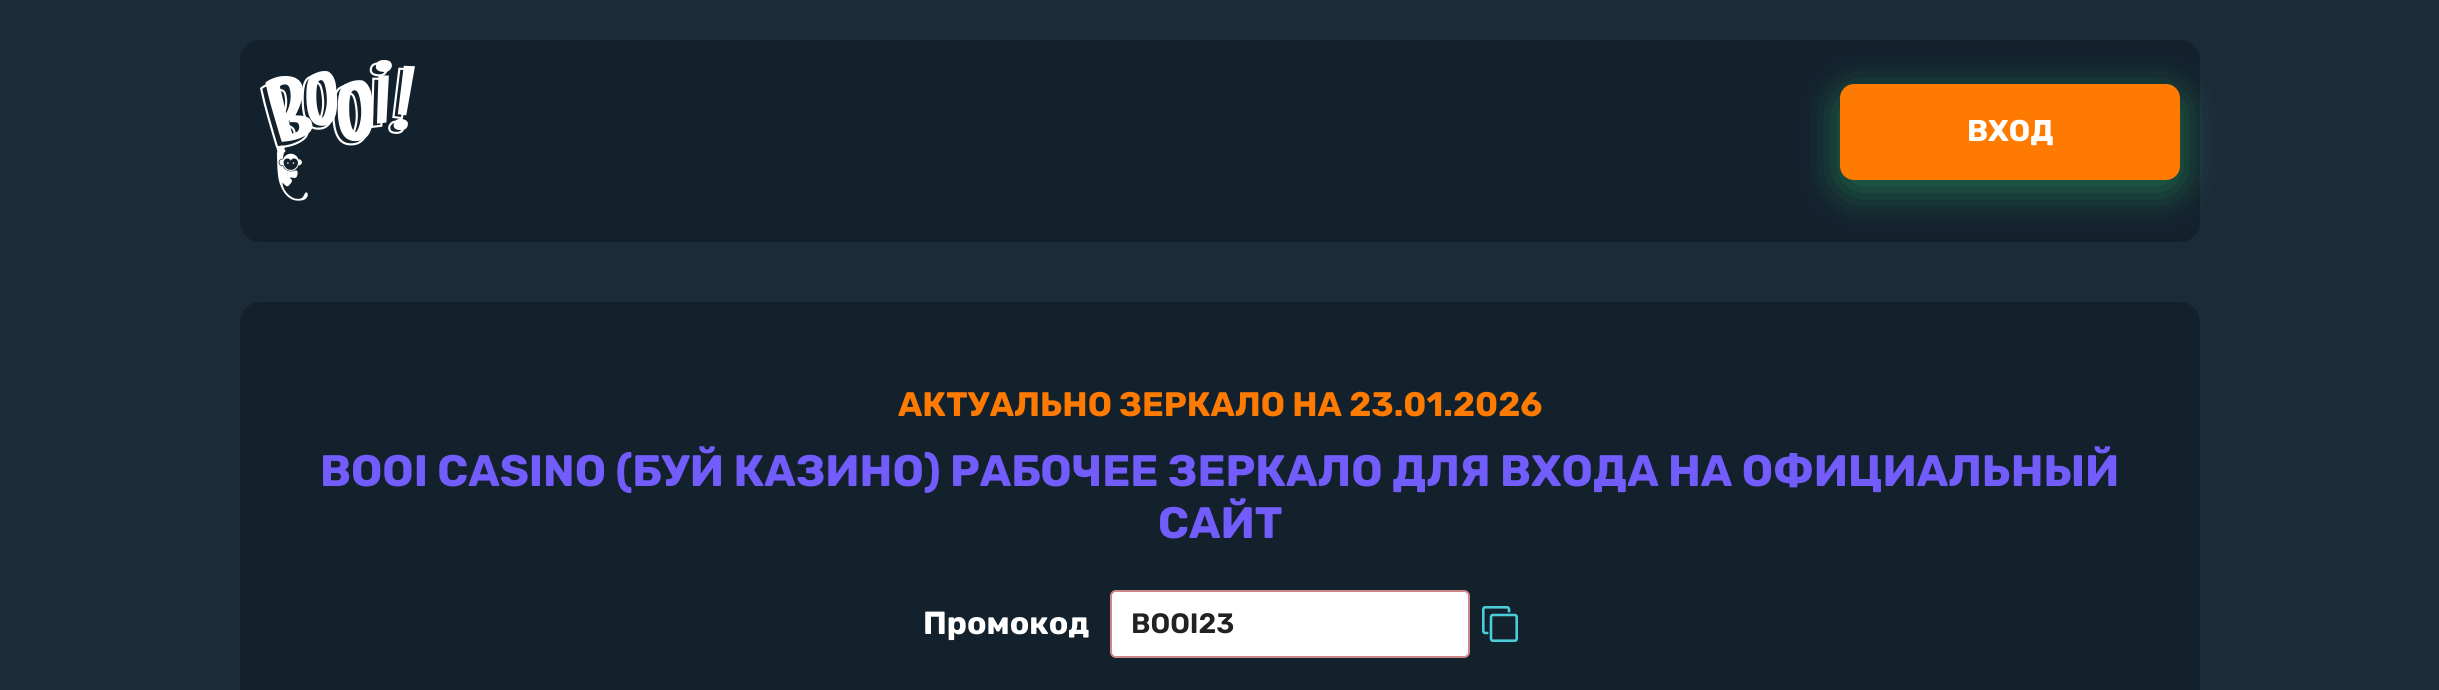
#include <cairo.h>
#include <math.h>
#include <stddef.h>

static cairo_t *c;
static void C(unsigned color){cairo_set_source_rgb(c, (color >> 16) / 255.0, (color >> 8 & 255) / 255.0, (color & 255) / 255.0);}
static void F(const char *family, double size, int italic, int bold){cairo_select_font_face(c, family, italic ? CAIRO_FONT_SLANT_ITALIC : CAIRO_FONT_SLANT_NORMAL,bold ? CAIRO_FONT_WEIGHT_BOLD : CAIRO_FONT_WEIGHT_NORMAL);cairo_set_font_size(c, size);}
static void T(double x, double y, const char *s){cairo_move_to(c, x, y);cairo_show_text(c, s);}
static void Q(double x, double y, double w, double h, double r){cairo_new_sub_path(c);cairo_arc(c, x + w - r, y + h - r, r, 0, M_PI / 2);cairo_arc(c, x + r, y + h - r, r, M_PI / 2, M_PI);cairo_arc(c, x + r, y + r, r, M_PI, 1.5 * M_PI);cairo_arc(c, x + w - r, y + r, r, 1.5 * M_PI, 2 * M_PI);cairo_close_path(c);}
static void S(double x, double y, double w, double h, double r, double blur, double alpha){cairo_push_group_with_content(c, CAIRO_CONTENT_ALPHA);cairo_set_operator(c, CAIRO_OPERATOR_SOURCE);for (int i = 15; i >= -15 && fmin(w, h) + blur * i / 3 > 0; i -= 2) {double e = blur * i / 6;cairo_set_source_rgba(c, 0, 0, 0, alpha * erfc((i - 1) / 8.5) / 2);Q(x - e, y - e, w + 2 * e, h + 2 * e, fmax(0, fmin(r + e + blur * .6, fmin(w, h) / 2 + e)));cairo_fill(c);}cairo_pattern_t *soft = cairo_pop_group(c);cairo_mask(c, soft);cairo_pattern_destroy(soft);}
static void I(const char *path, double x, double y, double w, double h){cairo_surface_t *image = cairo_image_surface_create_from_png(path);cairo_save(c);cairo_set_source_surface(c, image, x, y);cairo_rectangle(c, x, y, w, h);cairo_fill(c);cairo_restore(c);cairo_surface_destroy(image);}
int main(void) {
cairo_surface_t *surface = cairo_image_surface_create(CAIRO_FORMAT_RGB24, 2439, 690);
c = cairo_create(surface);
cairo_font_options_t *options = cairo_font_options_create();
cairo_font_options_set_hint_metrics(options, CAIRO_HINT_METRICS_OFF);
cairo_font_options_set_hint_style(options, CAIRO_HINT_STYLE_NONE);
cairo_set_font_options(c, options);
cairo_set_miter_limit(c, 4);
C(0x1b2b38);
cairo_paint(c);
C(0x13212d);
Q(240,40,1960,202,20);
cairo_fill(c);
I("1.png",260,60,155,141);
C(0x31bc69);
S(1840,94,340,96,14,20,.5);
C(0xff7a00);
Q(1840,84,340,96,14);
cairo_fill(c);
F("Rubik",30,0,1);
C(0xffffff);
T(1967,141,"ВХОД");
C(0x13212d);
Q(240,302,1960,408,20);
cairo_fill(c);
F("Rubik",34,0,1);
C(0xff7a00);
T(898,416,"АКТУАЛЬНО ЗЕРКАЛО НА 23.01.2026");
F("Rubik",44,0,1);
C(0x735cfc);
T(320,486,"BOOI CASINO (БУЙ КАЗИНО) РАБОЧЕЕ ЗЕРКАЛО ДЛЯ ВХОДА НА ОФИЦИАЛЬНЫЙ");
T(1158,538,"САЙТ");
F("Rubik",32,0,1);
C(0xffffff);
T(923,634,"Промокод");
Q(1111,591,358,66,5);
cairo_fill_preserve(c);
C(0xcc8887);
cairo_stroke(c);
F("Rubik SemiBold",28,0,0);
C(0x222222);
T(1131,633,"BOOI23");
I("2.png",1482,606,36,36);
cairo_surface_write_to_png(surface, "o.png");
cairo_font_options_destroy(options);
cairo_destroy(c);
cairo_surface_destroy(surface);
return 0;
}
